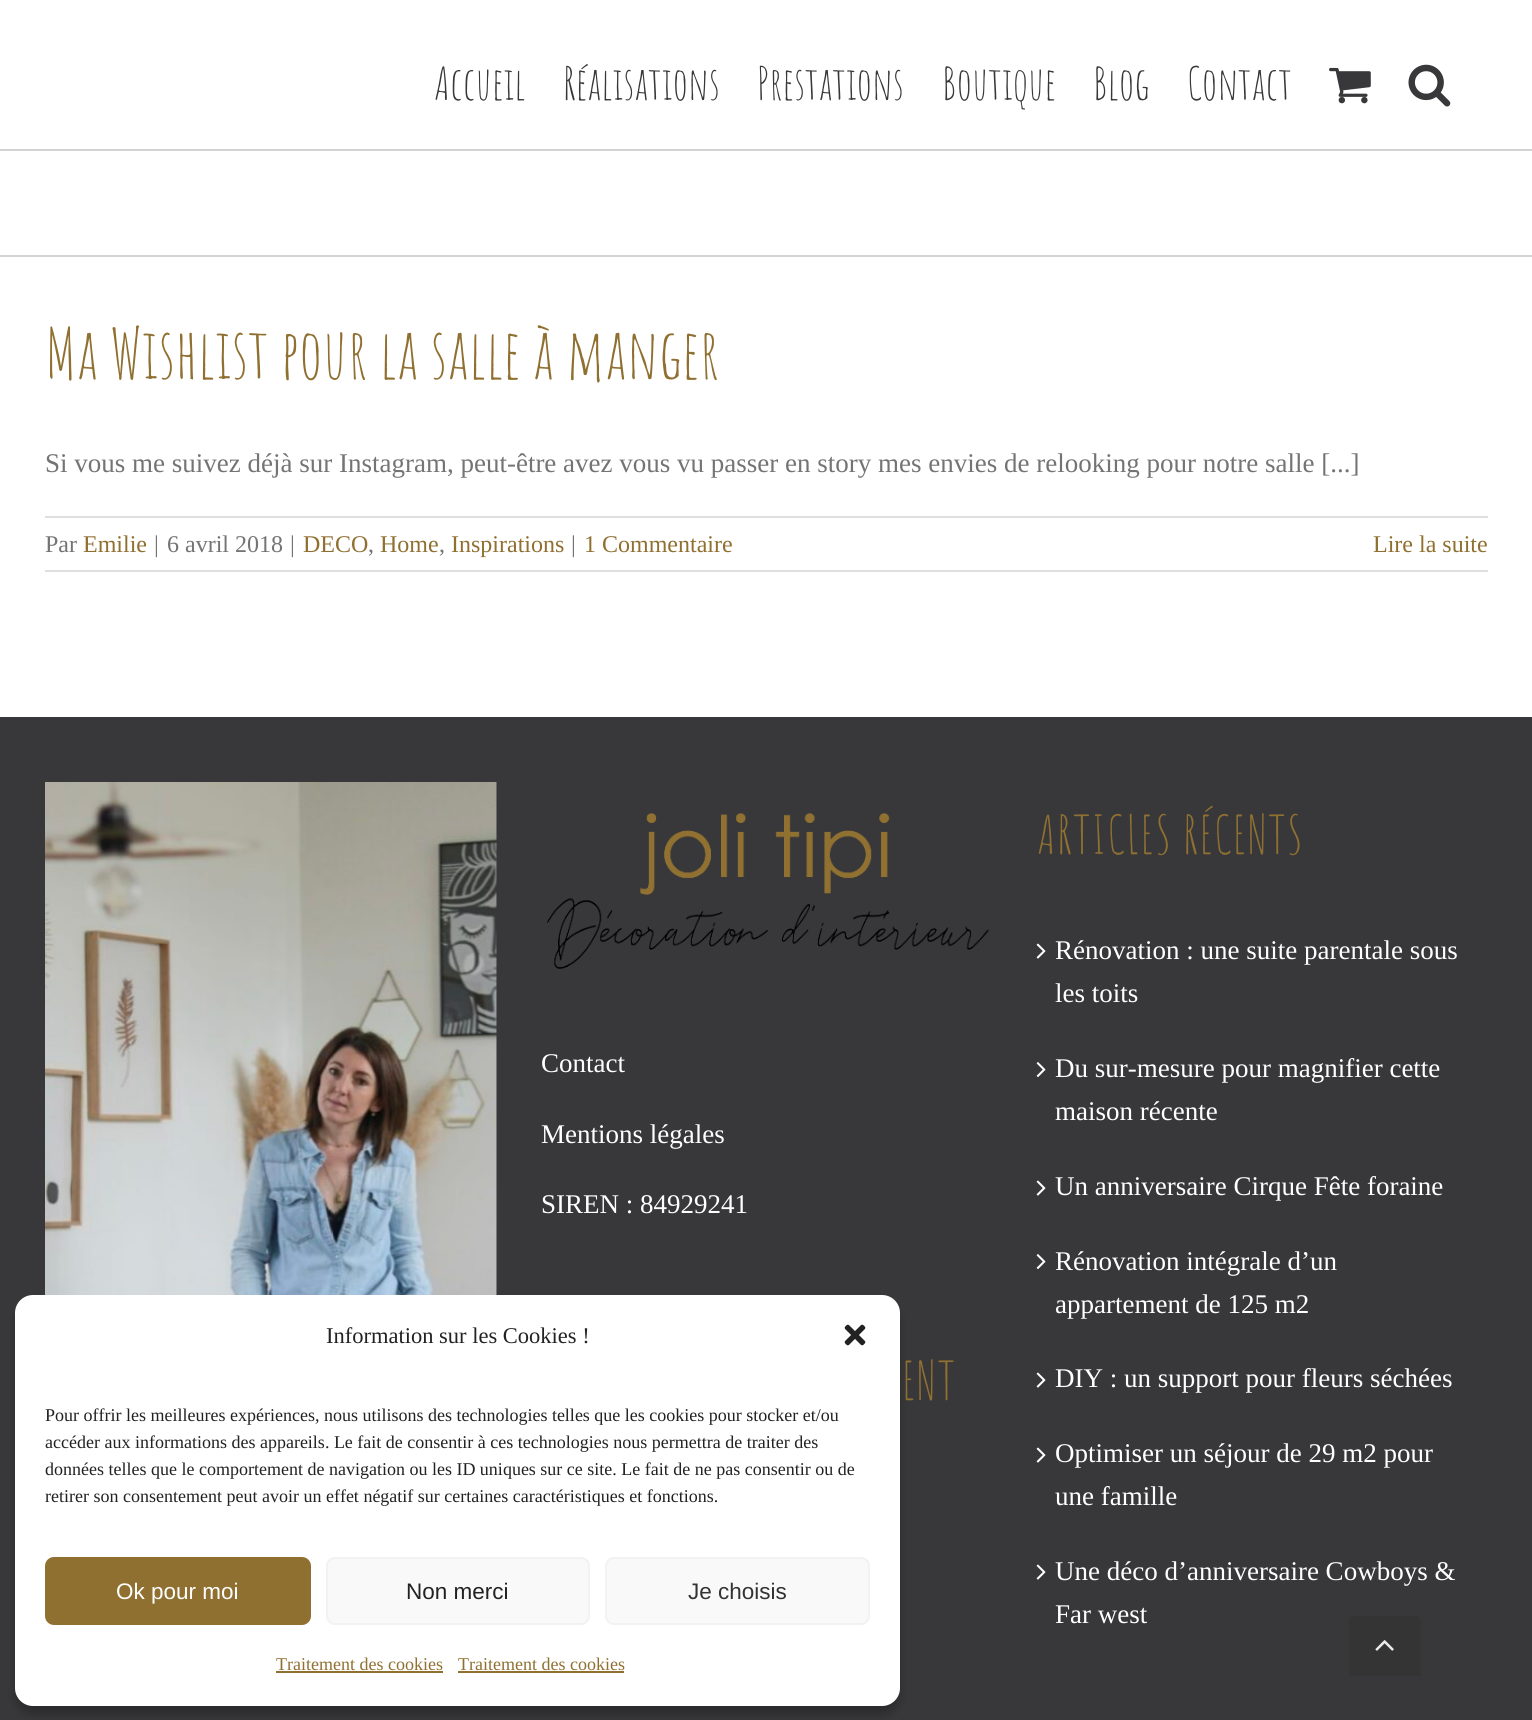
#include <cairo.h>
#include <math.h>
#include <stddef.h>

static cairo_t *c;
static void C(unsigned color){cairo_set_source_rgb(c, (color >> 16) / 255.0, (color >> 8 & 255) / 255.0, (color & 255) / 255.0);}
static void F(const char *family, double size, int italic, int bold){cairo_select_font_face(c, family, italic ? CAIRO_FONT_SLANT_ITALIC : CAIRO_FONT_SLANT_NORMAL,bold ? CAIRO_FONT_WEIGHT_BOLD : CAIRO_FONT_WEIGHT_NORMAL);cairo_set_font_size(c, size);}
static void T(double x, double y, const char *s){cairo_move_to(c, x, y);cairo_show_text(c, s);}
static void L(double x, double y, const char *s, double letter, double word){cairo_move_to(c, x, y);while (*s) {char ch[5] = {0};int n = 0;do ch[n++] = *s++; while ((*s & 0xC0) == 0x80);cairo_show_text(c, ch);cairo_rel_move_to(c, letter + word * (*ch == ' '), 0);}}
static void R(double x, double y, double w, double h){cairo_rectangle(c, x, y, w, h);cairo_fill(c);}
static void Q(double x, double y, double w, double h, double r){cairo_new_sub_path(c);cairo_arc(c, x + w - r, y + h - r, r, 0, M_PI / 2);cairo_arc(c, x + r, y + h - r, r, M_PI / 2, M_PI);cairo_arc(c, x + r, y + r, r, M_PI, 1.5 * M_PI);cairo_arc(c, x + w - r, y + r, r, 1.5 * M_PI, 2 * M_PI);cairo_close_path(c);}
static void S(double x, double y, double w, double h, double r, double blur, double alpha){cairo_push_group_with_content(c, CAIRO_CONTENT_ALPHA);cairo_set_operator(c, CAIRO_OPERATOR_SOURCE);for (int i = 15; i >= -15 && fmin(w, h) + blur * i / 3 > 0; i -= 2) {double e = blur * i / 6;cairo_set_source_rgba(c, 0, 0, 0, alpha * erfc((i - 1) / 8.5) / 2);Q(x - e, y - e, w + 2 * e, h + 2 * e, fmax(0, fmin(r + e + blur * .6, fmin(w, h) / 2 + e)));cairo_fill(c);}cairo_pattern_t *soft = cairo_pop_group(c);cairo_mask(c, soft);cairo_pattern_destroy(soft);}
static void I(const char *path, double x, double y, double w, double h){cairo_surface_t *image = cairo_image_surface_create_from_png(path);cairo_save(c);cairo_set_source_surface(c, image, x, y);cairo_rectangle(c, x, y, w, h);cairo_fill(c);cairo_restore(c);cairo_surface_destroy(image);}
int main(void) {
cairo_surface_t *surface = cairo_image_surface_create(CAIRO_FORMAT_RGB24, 1532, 1720);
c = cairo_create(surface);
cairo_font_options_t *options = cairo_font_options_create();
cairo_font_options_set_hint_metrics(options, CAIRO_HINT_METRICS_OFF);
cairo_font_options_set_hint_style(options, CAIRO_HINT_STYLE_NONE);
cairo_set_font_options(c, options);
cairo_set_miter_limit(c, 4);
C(0xffffff);
cairo_paint(c);
F("Amatic SC",45,0,0);
C(0x38383a);
T(434,100,"Accueil");
T(563,100,"Réalisations");
T(757,100,"Prestations");
T(942,100,"Boutique");
T(1093,100,"Blog");
T(1187,100,"Contact");
I("1.png",1329,67,42,37);
I("2.png",1408,64,43,43);
C(0xd2d3d4);
R(0,149,1532,2);
R(0,255,1532,2);
F("Amatic SC",69,0,0);
C(0x907031);
T(45,379,"Ma Wishlist pour la salle à manger");
F("Liberation Serif",27,0,0);
C(0x747474);
T(45,472,"Si vous me suivez déjà sur Instagram, peut-être avez vous vu passer en story mes envies de relooking pour notre salle [...]");
C(0xe0dede);
R(45,516,1443,2);
R(45,570,1443,2);
F("Liberation Serif",24,0,0);
C(0x747474);
T(45,552,"Par");
C(0x907031);
T(83,552,"Emilie");
C(0x747474);
T(154,552,"|");
T(167,552,"6 avril 2018");
T(290,552,"|");
C(0x907031);
T(303,552,"DECO");
C(0x747474);
T(368,552,",");
C(0x907031);
T(380,552,"Home");
C(0x747474);
T(439,552,",");
C(0x907031);
T(451,552,"Inspirations");
C(0x747474);
T(571,552,"|");
C(0x907031);
T(584,552,"1 Commentaire");
T(1373,552,"Lire la suite");
C(0x38383a);
R(0,717,1532,1003);
I("3.png",45,782,452,513);
I("4.png",547,813,442,156);
F("Liberation Serif",27,0,0);
C(0xffffff);
T(541,1072,"Contact");
T(541,1143,"Mentions légales");
T(541,1213,"SIREN : 84929241");
F("Amatic SC",52.5,0,0);
C(0x907031);
L(902,1400,"ENT",1.5,0);
L(1037,854,"ARTICLES RÉCENTS",1.5,0);
I("5.png",1036,943,10,16);
F("Liberation Serif",27,0,0);
C(0xffffff);
T(1055,959,"Rénovation : une suite parentale sous");
T(1055,1002,"les toits");
I("6.png",1036,1062,10,15);
T(1055,1077,"Du sur-mesure pour magnifier cette");
T(1055,1120,"maison récente");
I("5.png",1036,1180,10,16);
T(1055,1195,"Un anniversaire Cirque Fête foraine");
I("6.png",1036,1254,10,15);
T(1055,1270,"Rénovation intégrale d’un");
T(1055,1313,"appartement de 125 m2");
I("5.png",1036,1372,10,16);
T(1055,1387,"DIY : un support pour fleurs séchées");
I("5.png",1036,1447,10,16);
T(1055,1462,"Optimiser un séjour de 29 m2 pour");
T(1055,1505,"une famille");
I("5.png",1036,1564,10,16);
T(1055,1580,"Une déco d’anniversaire Cowboys &");
T(1055,1623,"Far west");
C(0x000000);
S(15,1304,885,411,18,4.5,.23);
C(0xffffff);
Q(15,1295,885,411,18);
cairo_fill(c);
F("Liberation Serif",22.5,0,0);
C(0x222222);
T(326,1343,"Information sur les Cookies !");
I("7.png",844,1324,22,22);
F("Liberation Serif",18,0,0);
T(45,1421,"Pour offrir les meilleures expériences, nous utilisons des technologies telles que les cookies pour stocker et/ou");
T(45,1448,"accéder aux informations des appareils. Le fait de consentir à ces technologies nous permettra de traiter des");
T(45,1475,"données telles que le comportement de navigation ou les ID uniques sur ce site. Le fait de ne pas consentir ou de");
T(45,1502,"retirer son consentement peut avoir un effet négatif sur certaines caractéristiques et fonctions.");
C(0x907031);
Q(46,1558,264,66,8);
cairo_fill_preserve(c);
cairo_stroke(c);
F("Liberation Sans",22.5,0,0);
C(0xffffff);
T(116,1599,"Ok pour moi");
C(0xf9f9f9);
Q(327,1558,262,66,8);
cairo_fill_preserve(c);
C(0xf2f2f2);
cairo_stroke(c);
C(0x222222);
T(406,1599,"Non merci");
C(0xf9f9f9);
Q(606,1558,263,66,8);
cairo_fill_preserve(c);
C(0xf2f2f2);
cairo_stroke(c);
C(0x333333);
T(688,1599,"Je choisis");
F("Liberation Serif",18,0,0);
C(0x907031);
T(276,1670,"Traitement des cookies");
R(276,1671,167,2);
T(458,1670,"Traitement des cookies");
R(458,1671,166,2);
C(0x343434);
cairo_new_path(c);
cairo_move_to(c,1355,1616);
cairo_line_to(c,1415,1616);
cairo_curve_to(c,1418.5,1616,1421,1618.5,1421,1622);
cairo_line_to(c,1421,1676);
cairo_line_to(c,1349,1676);
cairo_line_to(c,1349,1622);
cairo_curve_to(c,1349,1618.5,1351.5,1616,1355,1616);
cairo_close_path(c);
cairo_fill(c);
I("8.png",1375,1640,19,11);
cairo_surface_write_to_png(surface, "o.png");
cairo_font_options_destroy(options);
cairo_destroy(c);
cairo_surface_destroy(surface);
return 0;
}
